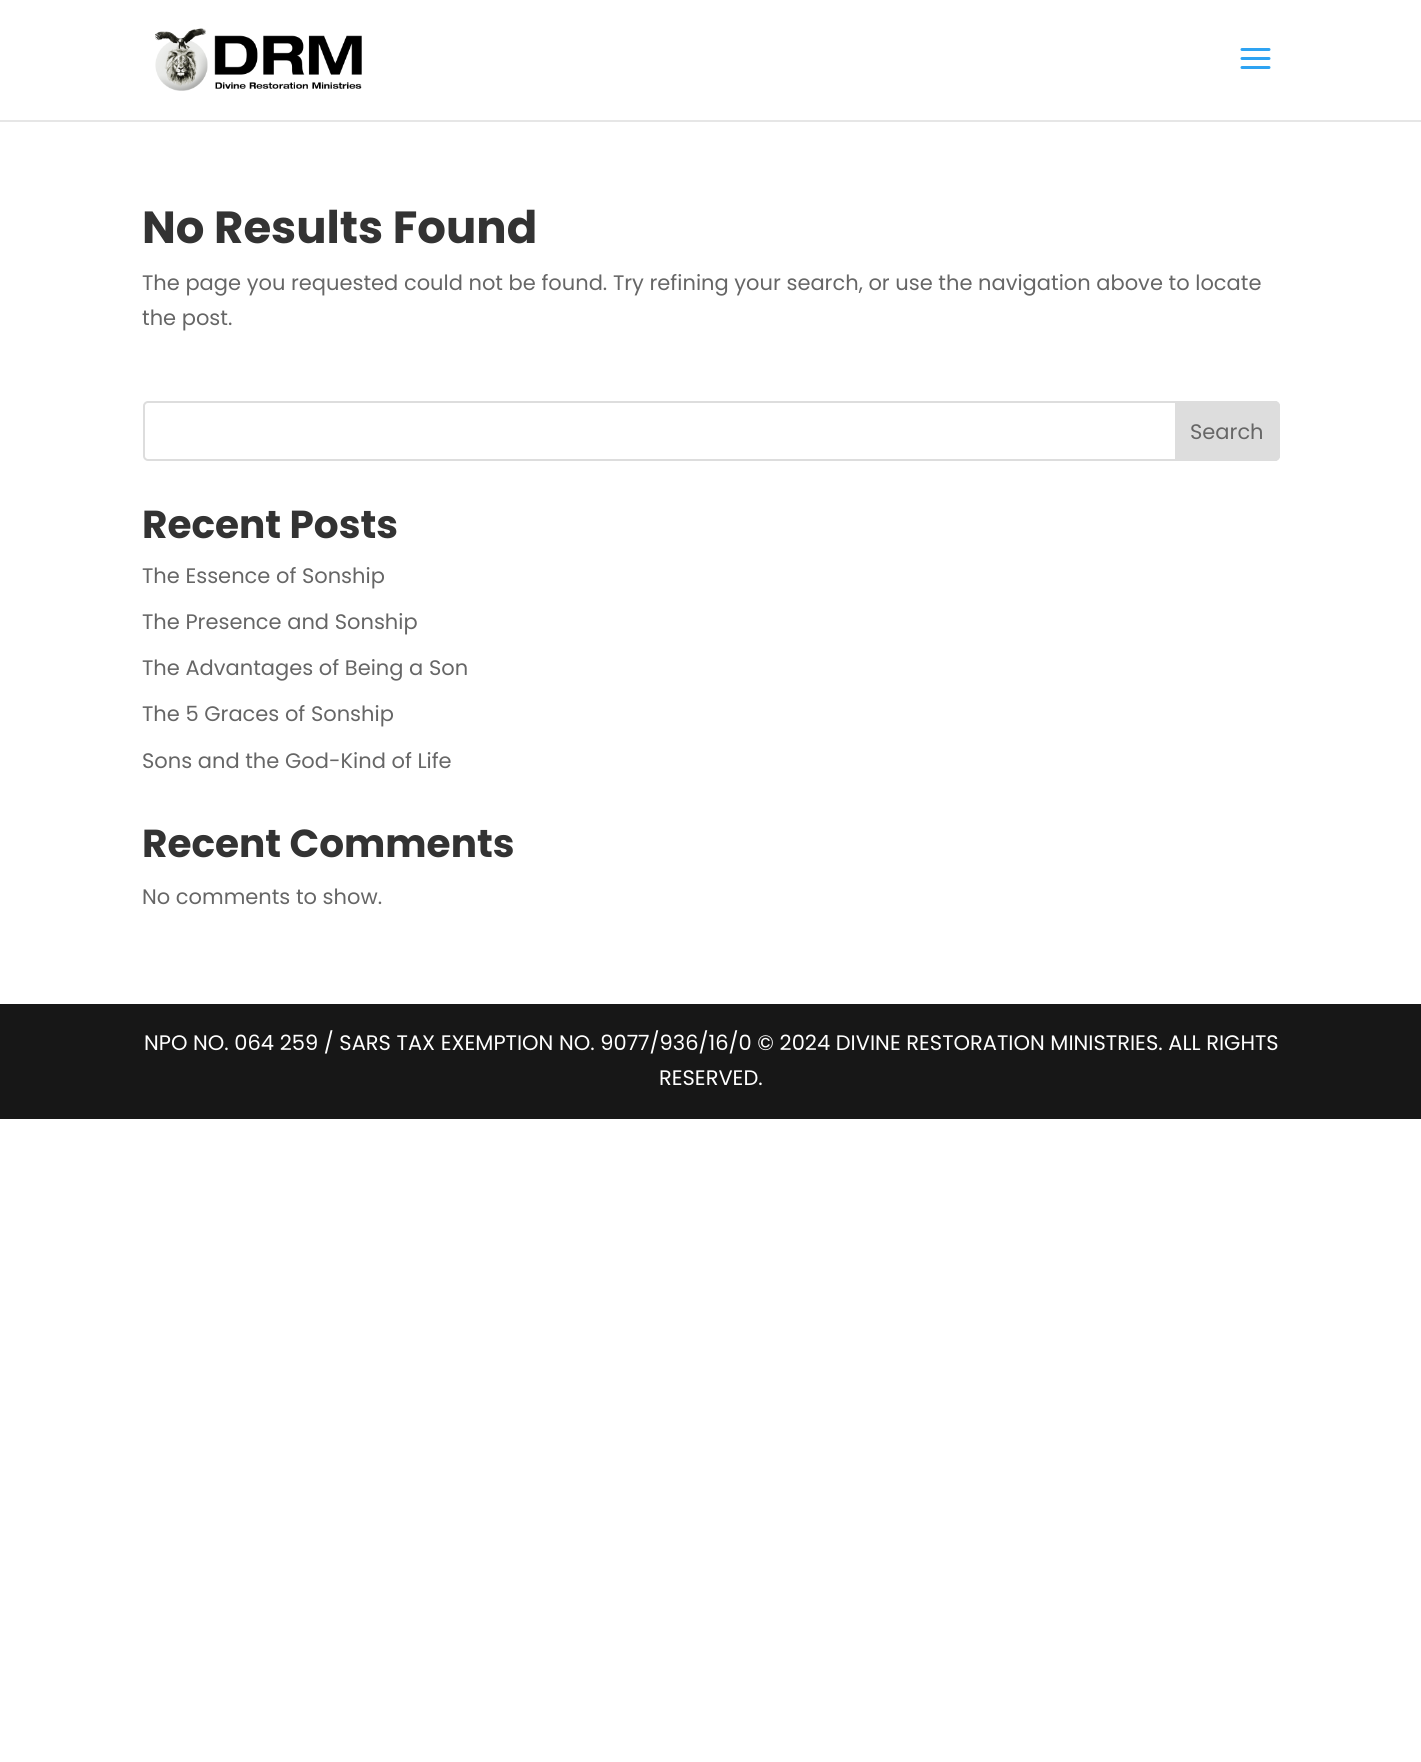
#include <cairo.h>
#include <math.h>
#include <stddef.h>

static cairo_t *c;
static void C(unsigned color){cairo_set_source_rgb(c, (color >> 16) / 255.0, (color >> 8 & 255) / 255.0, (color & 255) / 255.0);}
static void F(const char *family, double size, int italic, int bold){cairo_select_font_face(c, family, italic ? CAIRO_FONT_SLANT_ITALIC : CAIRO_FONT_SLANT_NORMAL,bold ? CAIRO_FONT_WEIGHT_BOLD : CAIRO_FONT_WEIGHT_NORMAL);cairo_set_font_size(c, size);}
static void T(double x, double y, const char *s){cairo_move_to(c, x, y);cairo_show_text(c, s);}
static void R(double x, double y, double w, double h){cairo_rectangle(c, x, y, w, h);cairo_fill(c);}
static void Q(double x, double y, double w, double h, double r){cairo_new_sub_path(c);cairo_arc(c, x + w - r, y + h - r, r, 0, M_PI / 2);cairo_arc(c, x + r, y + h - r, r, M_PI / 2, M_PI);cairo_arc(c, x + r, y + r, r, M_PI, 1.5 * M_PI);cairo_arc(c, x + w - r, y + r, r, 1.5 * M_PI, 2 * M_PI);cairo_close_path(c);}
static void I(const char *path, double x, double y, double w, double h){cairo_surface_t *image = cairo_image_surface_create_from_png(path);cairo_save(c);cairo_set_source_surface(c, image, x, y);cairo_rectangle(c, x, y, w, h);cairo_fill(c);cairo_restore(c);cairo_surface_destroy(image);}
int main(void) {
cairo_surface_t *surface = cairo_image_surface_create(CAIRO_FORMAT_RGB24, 1421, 1762);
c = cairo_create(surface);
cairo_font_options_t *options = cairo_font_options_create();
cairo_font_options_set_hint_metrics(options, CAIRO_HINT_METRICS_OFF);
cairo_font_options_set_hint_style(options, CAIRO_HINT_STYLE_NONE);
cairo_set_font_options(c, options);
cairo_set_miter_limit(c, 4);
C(0xffffff);
cairo_paint(c);
C(0xe6e6e6);
R(0,120,1421,2);
I("1.png",155,28,207,63);
I("2.png",1240,48,31,21);
F("Poppins",45,0,1);
C(0x333333);
T(142,243,"No Results Found");
F("Poppins",21,0,0);
C(0x666666);
T(142,290,"The page you requested could not be found. Try refining your search, or use the navigation above to locate");
T(142,325,"the post.");
Q(144,402,1135,58,4);
C(0xdddddd);
cairo_stroke(c);
cairo_new_path(c);
cairo_move_to(c,1176,402);
cairo_line_to(c,1275,402);
cairo_curve_to(c,1277,402,1279,404,1279,406);
cairo_line_to(c,1279,456);
cairo_curve_to(c,1279,458,1277,460,1275,460);
cairo_line_to(c,1176,460);
cairo_close_path(c);
cairo_fill_preserve(c);
cairo_stroke(c);
C(0x666666);
T(1190,439,"Search");
F("Poppins",39,0,1);
C(0x333333);
T(142,538,"Recent Posts");
F("Poppins",21,0,0);
C(0x666666);
T(142,583,"The Essence of Sonship");
T(142,629,"The Presence and Sonship");
T(142,675,"The Advantages of Being a Son");
T(142,721,"The 5 Graces of Sonship");
T(142,768,"Sons and the God-Kind of Life");
F("Poppins",39,0,1);
C(0x333333);
T(142,857,"Recent Comments");
F("Poppins",21,0,0);
C(0x666666);
T(142,904,"No comments to show.");
C(0x171717);
R(0,1004,1421,115);
C(0xffffff);
T(144,1050,"NPO NO. 064 259 / SARS TAX EXEMPTION NO. 9077/936/16/0 © 2024 DIVINE RESTORATION MINISTRIES. ALL RIGHTS");
T(659,1085,"RESERVED.");
cairo_surface_write_to_png(surface, "o.png");
cairo_font_options_destroy(options);
cairo_destroy(c);
cairo_surface_destroy(surface);
return 0;
}
